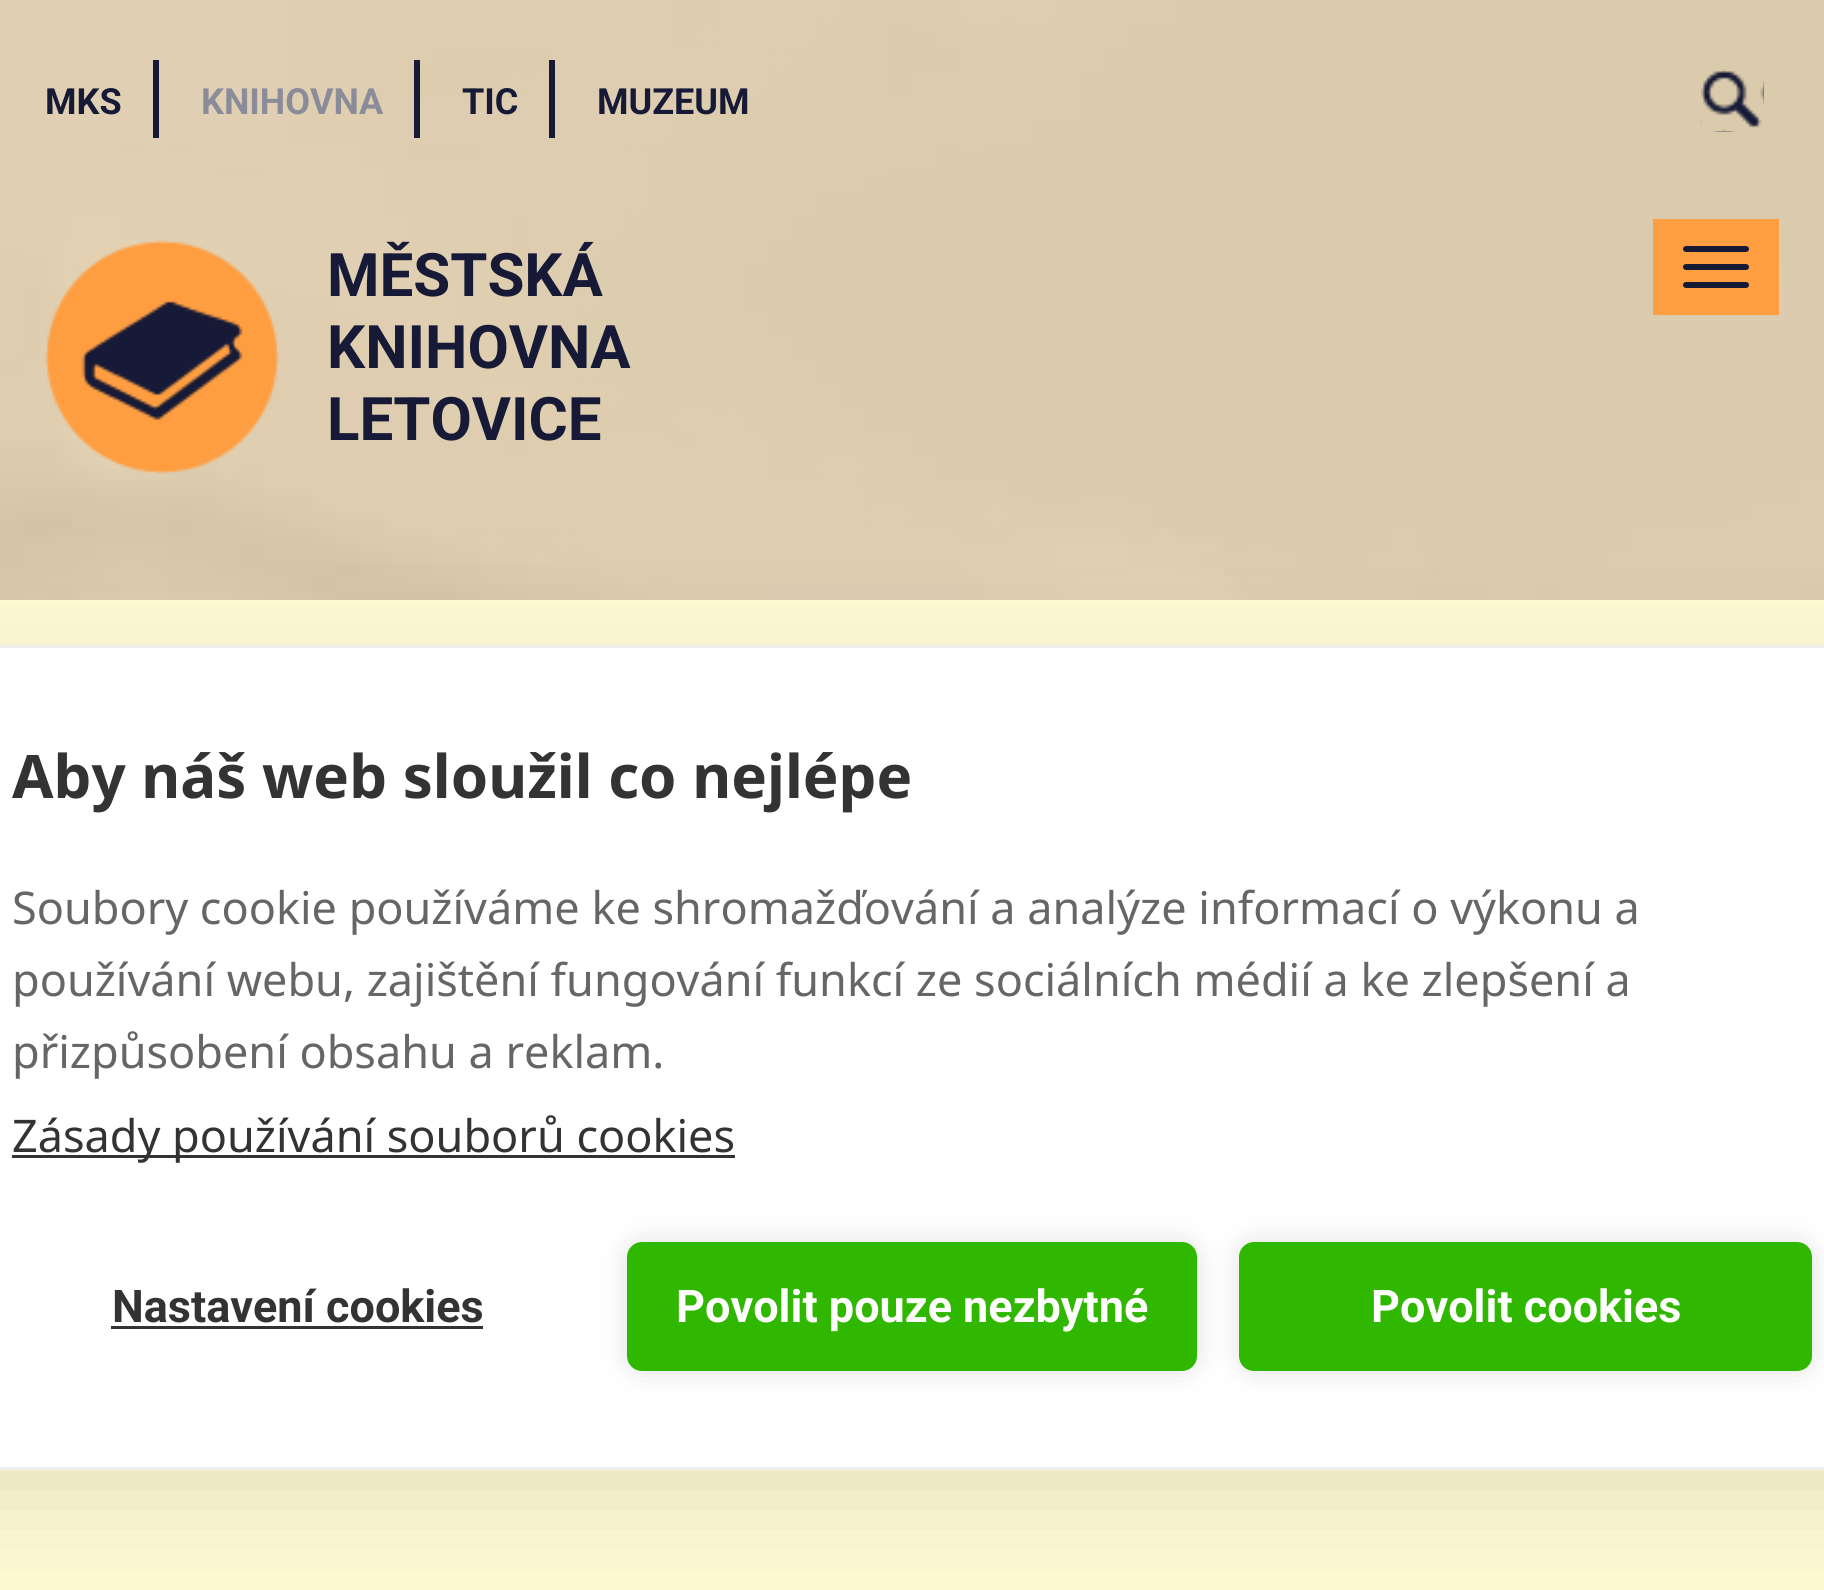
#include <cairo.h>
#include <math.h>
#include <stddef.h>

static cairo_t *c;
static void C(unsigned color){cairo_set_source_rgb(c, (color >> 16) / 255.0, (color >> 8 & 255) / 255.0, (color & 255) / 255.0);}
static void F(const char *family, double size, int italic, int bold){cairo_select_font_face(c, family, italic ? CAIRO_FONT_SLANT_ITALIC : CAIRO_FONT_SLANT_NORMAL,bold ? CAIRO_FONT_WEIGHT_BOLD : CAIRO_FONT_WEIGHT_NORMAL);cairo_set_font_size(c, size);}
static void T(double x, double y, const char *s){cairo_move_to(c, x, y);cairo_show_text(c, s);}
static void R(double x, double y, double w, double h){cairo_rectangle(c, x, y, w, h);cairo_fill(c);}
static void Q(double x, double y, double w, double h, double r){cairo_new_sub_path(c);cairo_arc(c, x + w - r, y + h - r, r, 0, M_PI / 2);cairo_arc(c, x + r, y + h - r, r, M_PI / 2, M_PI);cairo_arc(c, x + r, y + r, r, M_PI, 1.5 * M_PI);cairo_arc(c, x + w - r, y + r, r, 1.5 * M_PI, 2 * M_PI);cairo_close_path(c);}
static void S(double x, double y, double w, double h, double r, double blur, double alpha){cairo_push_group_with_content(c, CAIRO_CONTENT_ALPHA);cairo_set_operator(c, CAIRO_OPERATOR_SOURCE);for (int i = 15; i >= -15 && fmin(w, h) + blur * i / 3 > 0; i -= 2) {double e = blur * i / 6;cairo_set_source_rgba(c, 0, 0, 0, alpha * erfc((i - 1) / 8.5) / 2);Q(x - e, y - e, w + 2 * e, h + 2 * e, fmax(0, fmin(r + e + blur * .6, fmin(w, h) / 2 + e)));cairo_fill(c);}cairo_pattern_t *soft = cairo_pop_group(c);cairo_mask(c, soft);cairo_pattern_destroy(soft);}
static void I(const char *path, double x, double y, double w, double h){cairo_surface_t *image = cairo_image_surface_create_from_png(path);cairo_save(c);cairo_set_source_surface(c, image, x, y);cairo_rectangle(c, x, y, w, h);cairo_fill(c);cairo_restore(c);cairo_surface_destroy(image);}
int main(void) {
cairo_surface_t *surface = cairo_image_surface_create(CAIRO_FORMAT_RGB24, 1824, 1590);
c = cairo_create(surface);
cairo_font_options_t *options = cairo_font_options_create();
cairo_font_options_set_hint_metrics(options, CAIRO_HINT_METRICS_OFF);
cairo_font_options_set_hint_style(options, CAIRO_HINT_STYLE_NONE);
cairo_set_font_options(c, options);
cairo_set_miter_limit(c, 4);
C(0xffffff);
cairo_paint(c);
I("1.png",0,0,1824,600);
C(0x161a36);
R(153,60,6,78);
F("Roboto",36,0,1);
T(45,114,"MKS");
R(414,60,6,78);
C(0x8a8c9a);
T(201,114,"KNIHOVNA");
C(0x161a36);
R(549,60,6,78);
T(462,114,"TIC");
T(597,114,"MUZEUM");
I("2.png",1701,69,63,63);
I("3.png",45,240,234,234);
F("Roboto",60,0,1);
T(327,296,"MĚSTSKÁ");
T(327,368,"KNIHOVNA");
T(327,440,"LETOVICE");
C(0xff9e41);
R(1653,219,126,96);
C(0x161a36);
Q(1683,246,66,6,3);
cairo_fill(c);
Q(1683,264,66,6,3);
cairo_fill(c);
Q(1683,282,66,6,3);
cairo_fill(c);
C(0xfffad2);
R(0,600,1824,990);
C(0x000000);
S(-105,675,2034,825,24,60,.1);
C(0xffffff);
cairo_rectangle(c,-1.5,646.5,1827,822);
cairo_fill_preserve(c);
C(0xeeeeee);
cairo_set_line_width(c,3);
cairo_stroke(c);
F("Noto Sans",60,0,1);
C(0x333333);
T(12,798,"Aby náš web sloužil co nejlépe");
F("Noto Sans",45,0,0);
C(0x666666);
T(12,924,"Soubory cookie používáme ke shromažďování a analýze informací o výkonu a");
T(12,996,"používání webu, zajištění fungování funkcí ze sociálních médií a ke zlepšení a");
T(12,1068,"přizpůsobení obsahu a reklam.");
C(0x333333);
R(12,1155,723,3);
T(12,1152,"Zásady používání souborů cookies");
F("Roboto",45,0,1);
T(112,1322,"Nastavení cookies");
R(111,1326,372,3);
C(0x000000);
S(627,1242,570,129,15,15,.12);
C(0x30b700);
Q(627,1242,570,129,15);
cairo_fill(c);
C(0xffffff);
T(676,1322,"Povolit pouze nezbytné");
C(0x000000);
S(1239,1242,573,129,15,15,.12);
C(0x30b700);
Q(1239,1242,573,129,15);
cairo_fill(c);
C(0xffffff);
T(1371,1322,"Povolit cookies");
cairo_surface_write_to_png(surface, "o.png");
cairo_font_options_destroy(options);
cairo_destroy(c);
cairo_surface_destroy(surface);
return 0;
}
